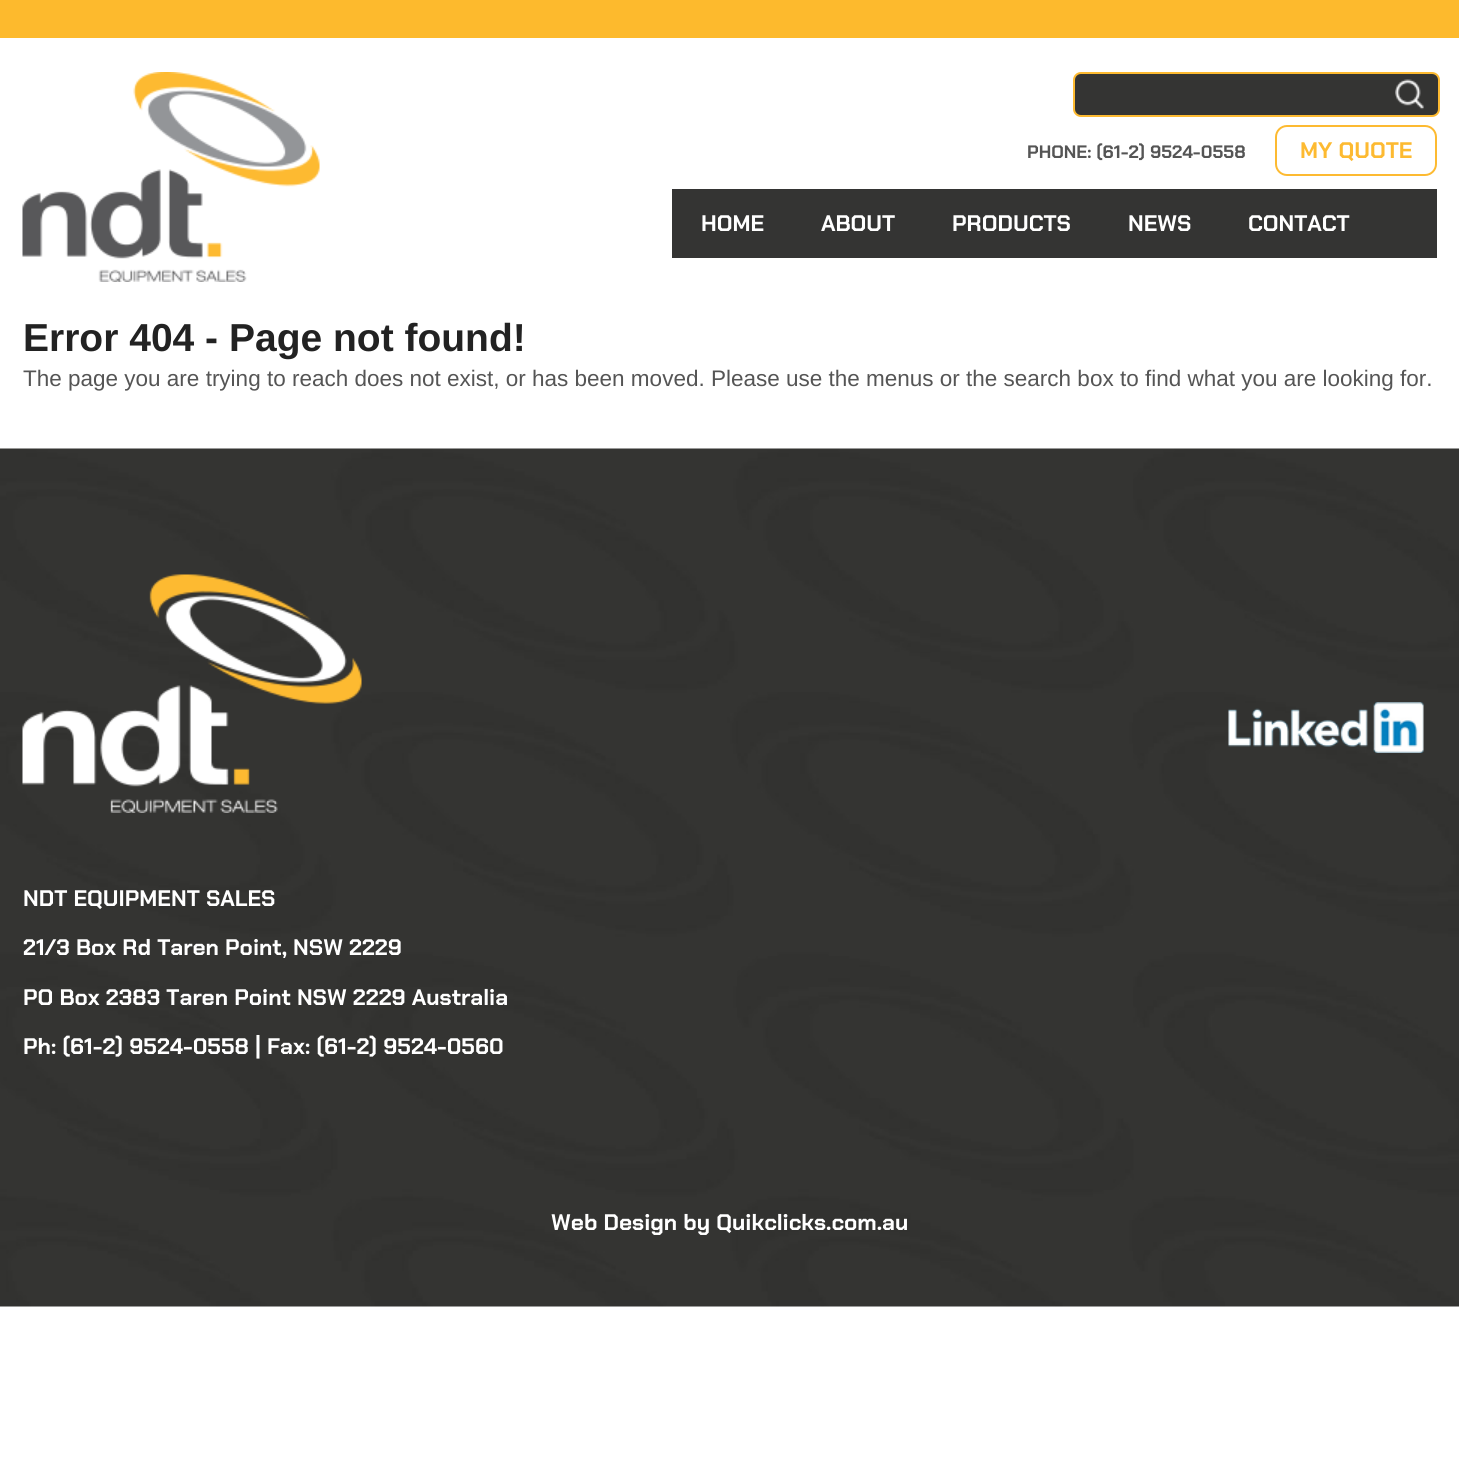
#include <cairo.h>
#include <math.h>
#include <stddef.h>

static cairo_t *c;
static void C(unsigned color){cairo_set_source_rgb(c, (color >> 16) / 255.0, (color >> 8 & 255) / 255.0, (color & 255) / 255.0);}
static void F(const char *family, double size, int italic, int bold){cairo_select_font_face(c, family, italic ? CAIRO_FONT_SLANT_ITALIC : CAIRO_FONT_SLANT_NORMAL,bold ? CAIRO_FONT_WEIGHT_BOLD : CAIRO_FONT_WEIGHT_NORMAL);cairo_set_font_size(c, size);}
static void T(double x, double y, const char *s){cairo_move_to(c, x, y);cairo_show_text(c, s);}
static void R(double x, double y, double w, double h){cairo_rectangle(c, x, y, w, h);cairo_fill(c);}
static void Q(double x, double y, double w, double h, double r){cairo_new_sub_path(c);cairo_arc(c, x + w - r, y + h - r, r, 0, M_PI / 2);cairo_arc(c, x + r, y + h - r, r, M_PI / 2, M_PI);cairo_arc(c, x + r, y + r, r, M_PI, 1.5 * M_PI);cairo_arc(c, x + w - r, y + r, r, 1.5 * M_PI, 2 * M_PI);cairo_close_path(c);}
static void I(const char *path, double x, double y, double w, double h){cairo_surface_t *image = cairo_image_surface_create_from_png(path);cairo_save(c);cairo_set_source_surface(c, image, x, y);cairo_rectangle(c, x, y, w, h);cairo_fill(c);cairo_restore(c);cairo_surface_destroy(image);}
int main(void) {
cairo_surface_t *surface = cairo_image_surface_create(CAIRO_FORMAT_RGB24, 1459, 1476);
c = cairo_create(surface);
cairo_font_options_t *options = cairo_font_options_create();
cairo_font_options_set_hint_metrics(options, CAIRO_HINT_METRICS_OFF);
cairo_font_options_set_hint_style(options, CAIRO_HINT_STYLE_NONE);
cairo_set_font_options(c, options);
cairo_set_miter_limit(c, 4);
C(0xffffff);
cairo_paint(c);
C(0xfdba2d);
R(0,0,1459,38);
I("1.png",22,72,298,210);
C(0x343433);
Q(1074,73,365,43,7);
cairo_fill_preserve(c);
C(0xfdba31);
cairo_stroke(c);
I("2.png",1395,79,29,31);
F("Chakra Petch",18,0,1);
C(0x555555);
T(1027,158,"PHONE: (61-2) 9524-0558");
Q(1276,126,160,49,11);
C(0xfdba31);
cairo_stroke(c);
F("Chakra Petch",22.5,0,1);
T(1300,158,"MY QUOTE");
C(0x343433);
R(672,189,765,69);
C(0xffffff);
T(701,231,"HOME");
T(821,231,"ABOUT");
T(952,231,"PRODUCTS");
T(1128,231,"NEWS");
T(1248,231,"CONTACT");
F("Liberation Sans",39,0,1);
C(0x222222);
T(23,351,"Error 404 - Page not found!");
F("Liberation Sans",22.5,0,0);
C(0x555555);
T(23,386,"The page you are trying to reach does not exist, or has been moved. Please use the menus or the search box to find what you are looking for.");
I("3.png",0,448,1459,859);
I("4.png",1228,702,196,51);
I("5.png",22,574,340,239);
F("Chakra Petch",22.5,0,1);
C(0xffffff);
T(23,906,"NDT EQUIPMENT SALES");
T(23,955,"21/3 Box Rd Taren Point, NSW 2229");
T(23,1005,"PO Box 2383 Taren Point NSW 2229 Australia");
T(23,1054,"Ph: (61-2) 9524-0558 | Fax: (61-2) 9524-0560");
T(551,1230,"Web Design by Quikclicks.com.au");
cairo_surface_write_to_png(surface, "o.png");
cairo_font_options_destroy(options);
cairo_destroy(c);
cairo_surface_destroy(surface);
return 0;
}
